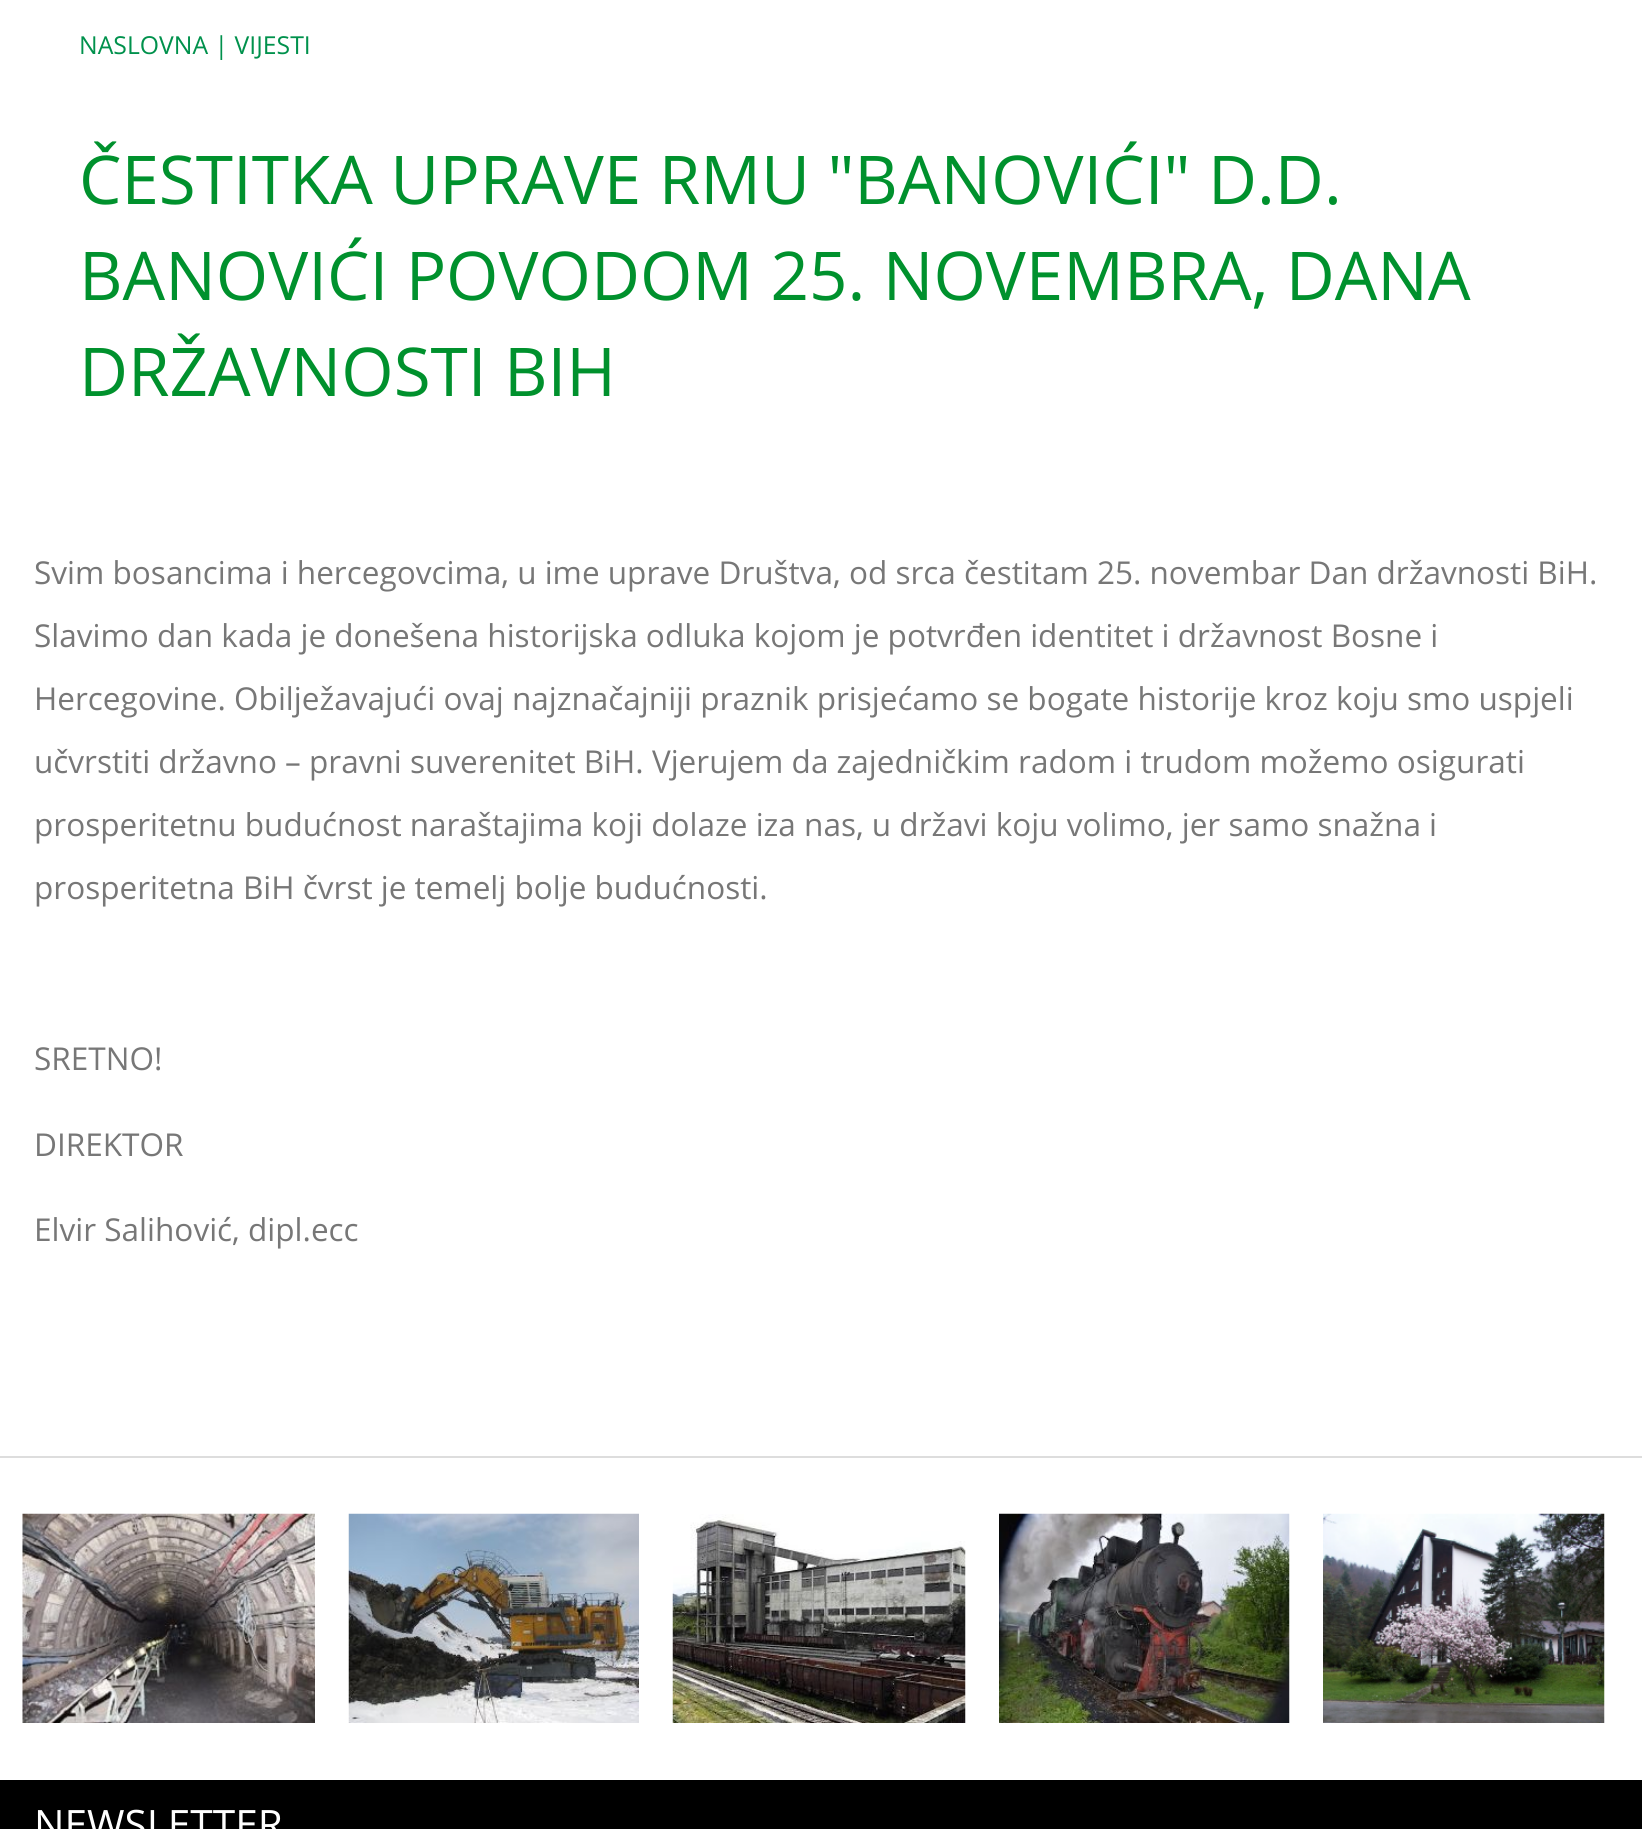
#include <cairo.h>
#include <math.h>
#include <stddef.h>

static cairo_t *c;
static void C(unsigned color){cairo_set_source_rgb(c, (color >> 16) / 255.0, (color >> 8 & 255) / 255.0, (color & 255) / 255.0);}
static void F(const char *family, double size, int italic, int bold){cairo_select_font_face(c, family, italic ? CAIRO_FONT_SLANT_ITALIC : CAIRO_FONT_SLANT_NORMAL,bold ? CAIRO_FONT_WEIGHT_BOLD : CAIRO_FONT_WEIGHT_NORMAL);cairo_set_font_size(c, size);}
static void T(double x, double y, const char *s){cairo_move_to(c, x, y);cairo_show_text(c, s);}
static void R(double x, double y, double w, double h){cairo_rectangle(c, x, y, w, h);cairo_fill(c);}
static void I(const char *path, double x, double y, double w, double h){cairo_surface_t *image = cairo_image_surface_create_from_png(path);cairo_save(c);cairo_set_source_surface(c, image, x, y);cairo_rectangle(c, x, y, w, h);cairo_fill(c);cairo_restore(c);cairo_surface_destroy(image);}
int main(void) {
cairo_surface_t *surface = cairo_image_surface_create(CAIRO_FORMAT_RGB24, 1642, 1829);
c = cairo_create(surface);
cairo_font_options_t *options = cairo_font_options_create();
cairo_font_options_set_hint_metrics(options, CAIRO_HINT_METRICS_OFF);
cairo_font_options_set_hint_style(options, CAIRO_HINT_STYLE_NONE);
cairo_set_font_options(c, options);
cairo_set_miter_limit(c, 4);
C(0xffffff);
cairo_paint(c);
F("Open Sans",24.75,0,0);
C(0x00914c);
T(79,54,"NASLOVNA | VIJESTI");
F("Open Sans",67.25,0,0);
C(0x00912d);
T(79,204,"ČESTITKA UPRAVE RMU \"BANOVIĆI\" D.D.");
T(79,300,"BANOVIĆI POVODOM 25. NOVEMBRA, DANA");
T(79,396,"DRŽAVNOSTI BIH");
F("Open Sans",31.5,0,0);
C(0x777777);
T(34,584,"Svim bosancima i hercegovcima, u ime uprave Društva, od srca čestitam 25. novembar Dan državnosti BiH.");
T(34,647,"Slavimo dan kada je donešena historijska odluka kojom je potvrđen identitet i državnost Bosne i");
T(34,710,"Hercegovine. Obilježavajući ovaj najznačajniji praznik prisjećamo se bogate historije kroz koju smo uspjeli");
T(34,773,"učvrstiti državno – pravni suverenitet BiH. Vjerujem da zajedničkim radom i trudom možemo osigurati");
T(34,836,"prosperitetnu budućnost naraštajima koji dolaze iza nas, u državi koju volimo, jer samo snažna i");
T(34,899,"prosperitetna BiH čvrst je temelj bolje budućnosti.");
T(34,1070,"SRETNO!");
T(34,1156,"DIREKTOR");
T(34,1241,"Elvir Salihović, dipl.ecc");
C(0xdddddd);
R(0,1456,1642,2);
I("1.png",22,1513,293,210);
I("2.png",348,1513,291,210);
I("3.png",672,1514,294,209);
I("4.png",999,1513,291,210);
I("5.png",1323,1513,282,210);
C(0x000000);
R(0,1780,1642,49);
F("Open Sans",40.5,0,0);
C(0xffffff);
T(34,1839,"NEWSLETTER");
cairo_surface_write_to_png(surface, "o.png");
cairo_font_options_destroy(options);
cairo_destroy(c);
cairo_surface_destroy(surface);
return 0;
}
